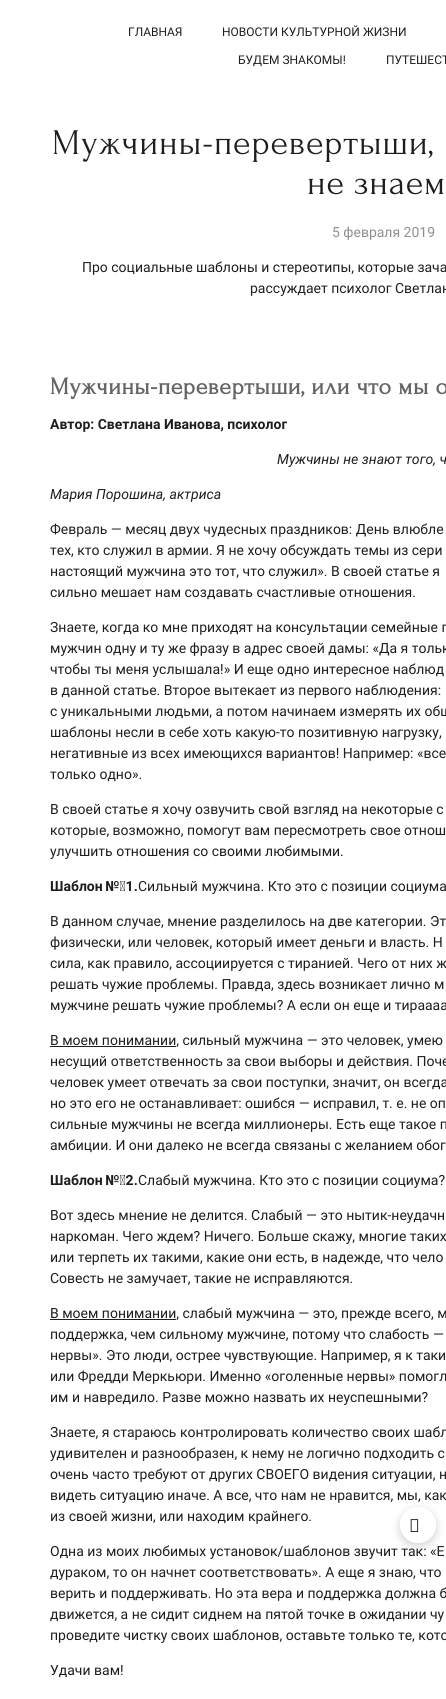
#include <cairo.h>
#include <math.h>
#include <stddef.h>

static cairo_t *c;
static void C(unsigned color){cairo_set_source_rgb(c, (color >> 16) / 255.0, (color >> 8 & 255) / 255.0, (color & 255) / 255.0);}
static void F(const char *family, double size, int italic, int bold){cairo_select_font_face(c, family, italic ? CAIRO_FONT_SLANT_ITALIC : CAIRO_FONT_SLANT_NORMAL,bold ? CAIRO_FONT_WEIGHT_BOLD : CAIRO_FONT_WEIGHT_NORMAL);cairo_set_font_size(c, size);}
static void T(double x, double y, const char *s){cairo_move_to(c, x, y);cairo_show_text(c, s);}
static void L(double x, double y, const char *s, double letter, double word){cairo_move_to(c, x, y);while (*s) {char ch[5] = {0};int n = 0;do ch[n++] = *s++; while ((*s & 0xC0) == 0x80);cairo_show_text(c, ch);cairo_rel_move_to(c, letter + word * (*ch == ' '), 0);}}
static void R(double x, double y, double w, double h){cairo_rectangle(c, x, y, w, h);cairo_fill(c);}
static void Q(double x, double y, double w, double h, double r){cairo_new_sub_path(c);cairo_arc(c, x + w - r, y + h - r, r, 0, M_PI / 2);cairo_arc(c, x + r, y + h - r, r, M_PI / 2, M_PI);cairo_arc(c, x + r, y + r, r, M_PI, 1.5 * M_PI);cairo_arc(c, x + w - r, y + r, r, 1.5 * M_PI, 2 * M_PI);cairo_close_path(c);}
static void S(double x, double y, double w, double h, double r, double blur, double alpha){cairo_push_group_with_content(c, CAIRO_CONTENT_ALPHA);cairo_set_operator(c, CAIRO_OPERATOR_SOURCE);for (int i = 15; i >= -15 && fmin(w, h) + blur * i / 3 > 0; i -= 2) {double e = blur * i / 6;cairo_set_source_rgba(c, 0, 0, 0, alpha * erfc((i - 1) / 8.5) / 2);Q(x - e, y - e, w + 2 * e, h + 2 * e, fmax(0, fmin(r + e + blur * .6, fmin(w, h) / 2 + e)));cairo_fill(c);}cairo_pattern_t *soft = cairo_pop_group(c);cairo_mask(c, soft);cairo_pattern_destroy(soft);}
static void I(const char *path, double x, double y, double w, double h){cairo_surface_t *image = cairo_image_surface_create_from_png(path);cairo_save(c);cairo_set_source_surface(c, image, x, y);cairo_rectangle(c, x, y, w, h);cairo_fill(c);cairo_restore(c);cairo_surface_destroy(image);}
int main(void) {
cairo_surface_t *surface = cairo_image_surface_create(CAIRO_FORMAT_RGB24, 446, 1699);
c = cairo_create(surface);
cairo_font_options_t *options = cairo_font_options_create();
cairo_font_options_set_hint_metrics(options, CAIRO_HINT_METRICS_OFF);
cairo_font_options_set_hint_style(options, CAIRO_HINT_STYLE_NONE);
cairo_set_font_options(c, options);
cairo_set_miter_limit(c, 4);
C(0xffffff);
cairo_paint(c);
F("Roboto",12,0,0);
C(0x1e1e1e);
T(128,36,"ГЛАВНАЯ");
T(222,36,"НОВОСТИ КУЛЬТУРНОЙ ЖИЗНИ");
T(238,64,"БУДЕМ ЗНАКОМЫ!");
T(386,64,"ПУТЕШЕСТ");
F("Forum",36,0,0);
L(52,154,"Мужчины-перевертыши,",.75,0);
L(307,194,"не знаем",.75,0);
F("Roboto",14,0,0);
C(0x8f8f8f);
T(332,237,"5 февраля 2019");
C(0x1e1e1e);
T(82,272,"Про социальные шаблоны и стереотипы, которые зача");
T(250,293,"рассуждает психолог Светлан");
F("Forum",24,0,1);
C(0x656565);
L(50,394,"Мужчины-перевертыши, или что мы о",.5,0);
F("Roboto",14,0,1);
C(0x1e1e1e);
T(50,429,"Автор: Светлана Иванова, психолог");
F("Roboto",14,1,0);
T(277,464,"Мужчины не знают того, ч");
T(50,499,"Мария Порошина, актриса");
F("Roboto",14,0,0);
T(50,534,"Февраль — месяц двух чудесных праздников: День влюбле");
T(50,555,"тех, кто служил в армии. Я не хочу обсуждать темы из сери");
T(50,576,"настоящий мужчина это тот, что служил». В своей статье я");
T(50,597,"сильно мешает нам создавать счастливые отношения.");
T(50,632,"Знаете, когда ко мне приходят на консультации семейные п");
T(50,653,"мужчин одну и ту же фразу в адрес своей дамы: «Да я тольк");
T(50,674,"чтобы ты меня услышала!» И еще одно интересное наблюд");
T(50,695,"в данной статье. Второе вытекает из первого наблюдения:");
T(50,716,"с уникальными людьми, а потом начинаем измерять их общ");
T(50,737,"шаблоны несли в себе хоть какую-то позитивную нагрузку,");
T(50,758,"негативные из всех имеющихся вариантов! Например: «все");
T(50,779,"только одно».");
T(50,814,"В своей статье я хочу озвучить свой взгляд на некоторые с");
T(50,835,"которые, возможно, помогут вам пересмотреть свое отнош");
T(50,856,"улучшить отношения со своими любимыми.");
F("Roboto",14,0,1);
L(50,891,"Шаблон № 1.",0,-1);
F("Roboto",14,0,0);
T(138,891,"Сильный мужчина. Кто это с позиции социума");
T(50,926,"В данном случае, мнение разделилось на две категории. Эт");
T(50,947,"физически, или человек, который имеет деньги и власть. Н");
T(50,968,"сила, как правило, ассоциируется с тиранией. Чего от них ж");
T(50,989,"решать чужие проблемы. Правда, здесь возникает лично м");
T(50,1010,"мужчине решать чужие проблемы? А если он еще и тираааа");
R(50,1046,126,1);
T(50,1045,"В моем понимании, сильный мужчина — это человек, умею");
T(50,1066,"несущий ответственность за свои выборы и действия. Поче");
T(50,1087,"человек умеет отвечать за свои поступки, значит, он всегда");
T(50,1108,"но это его не останавливает: ошибся — исправил, т. е. не оп");
T(50,1129,"сильные мужчины не всегда миллионеры. Есть еще такое п");
T(50,1150,"амбиции. И они далеко не всегда связаны с желанием обог");
F("Roboto",14,0,1);
L(50,1185,"Шаблон № 2.",0,-1);
F("Roboto",14,0,0);
T(138,1185,"Слабый мужчина. Кто это с позиции социума?");
T(50,1220,"Вот здесь мнение не делится. Слабый — это нытик-неудачн");
T(50,1241,"наркоман. Чего ждем? Ничего. Больше скажу, многие таких");
T(50,1262,"или терпеть их такими, какие они есть, в надежде, что чело");
T(50,1283,"Совесть не замучает, такие не исправляются.");
R(50,1319,126,1);
T(50,1318,"В моем понимании, слабый мужчина — это, прежде всего, м");
T(50,1339,"поддержка, чем сильному мужчине, потому что слабость —");
T(50,1360,"нервы». Это люди, острее чувствующие. Например, я к таки");
T(50,1381,"или Фредди Меркьюри. Именно «оголенные нервы» помогл");
T(50,1402,"им и навредило. Разве можно назвать их неуспешными?");
T(50,1437,"Знаете, я стараюсь контролировать количество своих шабл");
T(50,1458,"удивителен и разнообразен, к нему не логично подходить с");
T(50,1479,"очень часто требуют от других СВОЕГО видения ситуации, н");
T(50,1500,"видеть ситуацию иначе. А все, что нам не нравится, мы, как");
T(50,1521,"из своей жизни, или находим крайнего.");
T(50,1556,"Одна из моих любимых установок/шаблонов звучит так: «Е");
T(50,1577,"дураком, то он начнет соответствовать». А еще я знаю, что");
T(50,1598,"верить и поддерживать. Но эта вера и поддержка должна б");
T(50,1619,"движется, а не сидит сиднем на пятой точке в ожидании чу");
T(50,1640,"проведите чистку своих шаблонов, оставьте только те, кото");
T(50,1675,"Удачи вам!");
cairo_save(c);
cairo_set_fill_rule(c,CAIRO_FILL_RULE_EVEN_ODD);
cairo_new_path(c);
cairo_move_to(c,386,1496);
cairo_line_to(c,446,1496);
cairo_line_to(c,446,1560);
cairo_line_to(c,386,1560);
cairo_close_path(c);
cairo_move_to(c,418,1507);
cairo_curve_to(c,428,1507,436,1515,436,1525);
cairo_curve_to(c,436,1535,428,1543,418,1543);
cairo_curve_to(c,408,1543,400,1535,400,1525);
cairo_curve_to(c,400,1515,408,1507,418,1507);
cairo_close_path(c);
cairo_clip(c);
C(0x000000);
S(399,1509,38,38,19,4,.15);
cairo_restore(c);
I("1.png",410,1519,9,13);
cairo_surface_write_to_png(surface, "o.png");
cairo_font_options_destroy(options);
cairo_destroy(c);
cairo_surface_destroy(surface);
return 0;
}
